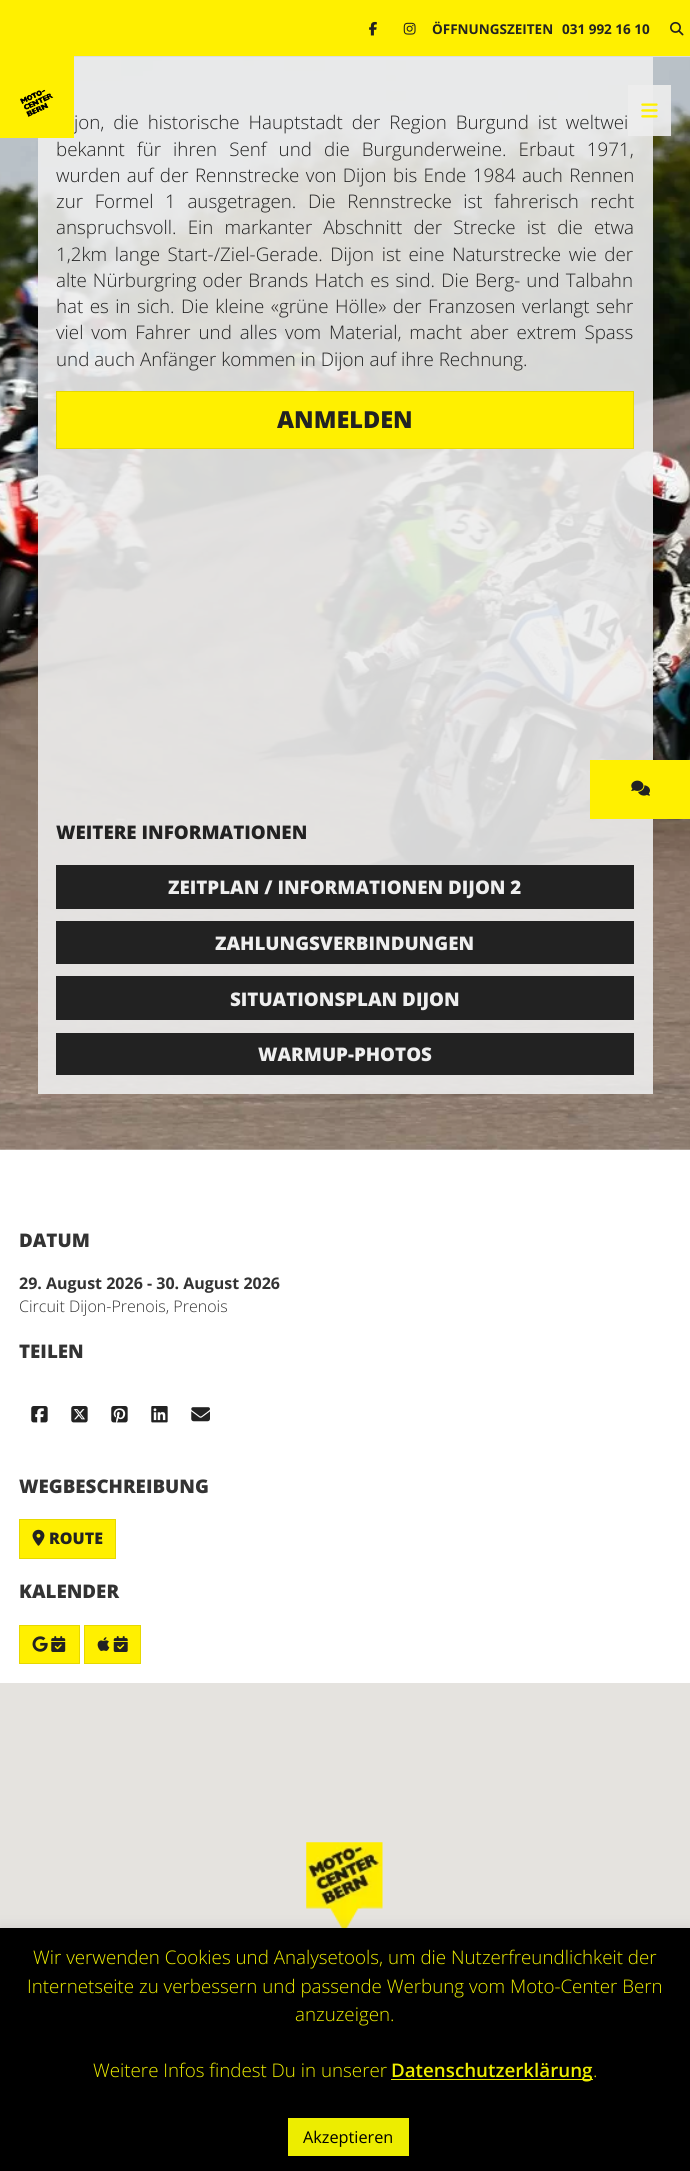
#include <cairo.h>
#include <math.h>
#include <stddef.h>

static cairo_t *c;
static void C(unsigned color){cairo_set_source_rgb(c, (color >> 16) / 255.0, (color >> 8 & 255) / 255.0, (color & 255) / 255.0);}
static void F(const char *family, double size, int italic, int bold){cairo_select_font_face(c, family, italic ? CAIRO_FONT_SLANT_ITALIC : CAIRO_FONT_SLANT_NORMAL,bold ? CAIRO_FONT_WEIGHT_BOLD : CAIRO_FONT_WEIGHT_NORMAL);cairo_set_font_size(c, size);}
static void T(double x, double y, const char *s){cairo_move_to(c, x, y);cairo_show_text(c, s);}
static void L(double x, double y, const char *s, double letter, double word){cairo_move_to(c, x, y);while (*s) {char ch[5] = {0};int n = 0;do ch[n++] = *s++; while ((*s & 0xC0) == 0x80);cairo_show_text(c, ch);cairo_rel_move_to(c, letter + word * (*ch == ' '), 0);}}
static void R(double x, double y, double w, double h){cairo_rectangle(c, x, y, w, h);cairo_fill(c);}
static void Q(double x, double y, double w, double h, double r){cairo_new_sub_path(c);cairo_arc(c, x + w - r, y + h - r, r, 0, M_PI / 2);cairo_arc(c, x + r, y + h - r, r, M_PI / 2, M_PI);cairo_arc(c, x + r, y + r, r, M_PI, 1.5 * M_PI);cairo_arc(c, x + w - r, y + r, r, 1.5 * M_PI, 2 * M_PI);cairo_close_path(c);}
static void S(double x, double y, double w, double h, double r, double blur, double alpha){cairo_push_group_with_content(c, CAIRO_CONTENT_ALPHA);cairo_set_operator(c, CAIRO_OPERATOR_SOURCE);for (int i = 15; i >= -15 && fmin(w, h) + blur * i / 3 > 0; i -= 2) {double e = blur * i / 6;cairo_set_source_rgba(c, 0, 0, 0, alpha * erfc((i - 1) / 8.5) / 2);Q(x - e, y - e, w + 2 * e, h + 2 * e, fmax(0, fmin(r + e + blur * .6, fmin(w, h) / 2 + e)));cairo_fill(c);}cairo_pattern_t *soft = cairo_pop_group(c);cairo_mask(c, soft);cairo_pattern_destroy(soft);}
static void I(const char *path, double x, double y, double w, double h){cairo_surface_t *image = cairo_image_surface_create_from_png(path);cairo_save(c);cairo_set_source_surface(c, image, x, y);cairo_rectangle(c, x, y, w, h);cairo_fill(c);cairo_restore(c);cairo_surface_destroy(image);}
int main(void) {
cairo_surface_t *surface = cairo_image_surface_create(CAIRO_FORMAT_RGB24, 690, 2171);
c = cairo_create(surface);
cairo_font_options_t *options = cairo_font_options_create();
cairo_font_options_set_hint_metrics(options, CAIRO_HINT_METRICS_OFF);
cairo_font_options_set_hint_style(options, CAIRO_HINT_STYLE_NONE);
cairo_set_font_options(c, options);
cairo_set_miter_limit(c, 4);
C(0xffffff);
cairo_paint(c);
C(0xfff000);
R(0,0,690,56);
I("1.png",369,21,8,15);
I("2.png",403,22,13,13);
F("Open Sans",13.5,0,1);
C(0x222222);
T(432,34,"ÖFFNUNGSZEITEN");
T(562,34,"031 992 16 10");
I("3.png",670,21,14,15);
C(0xdddddd);
R(74,56,616,1);
I("6.png",0,57,690,1093);
cairo_set_source_rgba(c,0.933,0.933,0.933,0.9);
R(38,57,615,1037);
F("Open Sans Light",18.75,0,0);
C(0x222222);
L(74,129,"jon, die historische Hauptstadt der Region Burgund ist weltwei",0,4);
C(0xfff000);
R(0,56,74,82);
I("4.png",20,89,34,28);
cairo_set_source_rgba(c,0.933,0.933,0.933,0.9);
R(628,85,43,51);
I("5.png",641,103,17,15);
C(0x222222);
L(56,156,"bekannt für ihren Senf und die Burgunderweine. Erbaut 1971,",0,7.25);
L(56,182,"wurden auf der Rennstrecke von Dijon bis Ende 1984 auch Rennen",0,1.5);
L(56,208,"zur Formel 1 ausgetragen. Die Rennstrecke ist fahrerisch recht",0,6.75);
L(56,234,"anspruchsvoll. Ein markanter Abschnitt der Strecke ist die etwa",0,6.25);
L(56,261,"1,2km lange Start-/Ziel-Gerade. Dijon ist eine Naturstrecke wie der",0,2.75);
L(56,287,"alte Nürburgring oder Brands Hatch es sind. Die Berg- und Talbahn",0,1.25);
L(56,313,"hat es in sich. Die kleine «grüne Hölle» der Franzosen verlangt sehr",0,1.6);
L(56,339,"viel vom Fahrer und alles vom Material, macht aber extrem Spass",0,3);
T(56,366,"und auch Anfänger kommen in Dijon auf ihre Rechnung.");
C(0xfff000);
cairo_rectangle(c,56.5,391.5,577,57);
cairo_fill_preserve(c);
C(0xe6d800);
cairo_set_line_width(c,1);
cairo_stroke(c);
F("Open Sans ExtraBold",23.5,0,0);
C(0x222222);
T(277,428,"ANMELDEN");
F("Open Sans ExtraBold",18.75,0,0);
T(56,839,"WEITERE INFORMATIONEN");
R(56,865,578,44);
C(0xeeeeee);
T(168,894,"ZEITPLAN / INFORMATIONEN DIJON 2");
C(0x222222);
R(56,921,578,43);
C(0xeeeeee);
T(215,950,"ZAHLUNGSVERBINDUNGEN");
C(0x222222);
R(56,976,578,44);
C(0xeeeeee);
T(230,1006,"SITUATIONSPLAN DIJON");
C(0x222222);
R(56,1033,578,42);
C(0xeeeeee);
T(258,1061,"WARMUP-PHOTOS");
C(0x333333);
T(19,1247,"DATUM");
F("Open Sans",16,0,1);
T(19,1289,"29. August 2026 - 30. August 2026");
F("Open Sans Light",16,0,0);
T(19,1312,"Circuit Dijon-Prenois, Prenois");
F("Open Sans ExtraBold",18.75,0,0);
T(19,1358,"TEILEN");
I("7.png",31,1406,17,17);
I("8.png",71,1406,17,17);
I("9.png",111,1406,17,17);
I("10.png",151,1406,17,17);
I("11.png",191,1407,19,15);
T(19,1493,"WEGBESCHREIBUNG");
C(0xfff000);
cairo_rectangle(c,19.5,1519.5,96,39);
cairo_fill_preserve(c);
C(0xe6d800);
cairo_stroke(c);
I("12.png",32,1529,13,17);
F("Open Sans ExtraBold",16,0,0);
C(0x222222);
T(49,1544,"ROUTE");
F("Open Sans ExtraBold",18.75,0,0);
C(0x333333);
T(19,1598,"KALENDER");
C(0xfff000);
cairo_rectangle(c,19.5,1625.5,60,38);
cairo_fill_preserve(c);
C(0xe6d800);
cairo_stroke(c);
I("13.png",32,1636,16,16);
I("14.png",51,1636,15,16);
C(0xfff000);
cairo_rectangle(c,84.5,1625.5,56,38);
cairo_fill_preserve(c);
C(0xe6d800);
cairo_stroke(c);
I("15.png",97,1637,13,14);
I("16.png",113,1636,15,16);
C(0xe5e3df);
R(0,1683,690,245);
I("17.png",306,1842,77,86);
C(0xfff000);
R(590,760,100,59);
I("18.png",631,780,19,16);
C(0xacabab);
S(0,1926,690,244,0,6,.3);
C(0x000000);
R(0,1928,690,243);
F("Open Sans Light",18.75,0,0);
C(0xeded00);
T(33,1964,"Wir verwenden Cookies und Analysetools, um die Nutzerfreundlichkeit der");
T(27,1993,"Internetseite zu verbessern und passende Werbung vom Moto-Center Bern");
T(295,2021,"anzuzeigen.");
T(93,2077,"Weitere Infos findest Du in unserer");
R(391,2079,202,1);
F("Open Sans SemiBold",18.75,0,0);
T(391,2077,"Datenschutzerklärung");
F("Open Sans Light",18.75,0,0);
T(593,2077,".");
R(288,2118,121,38);
F("Open Sans",16.25,0,0);
C(0x000000);
T(303,2143,"Akzeptieren");
cairo_surface_write_to_png(surface, "o.png");
cairo_font_options_destroy(options);
cairo_destroy(c);
cairo_surface_destroy(surface);
return 0;
}
